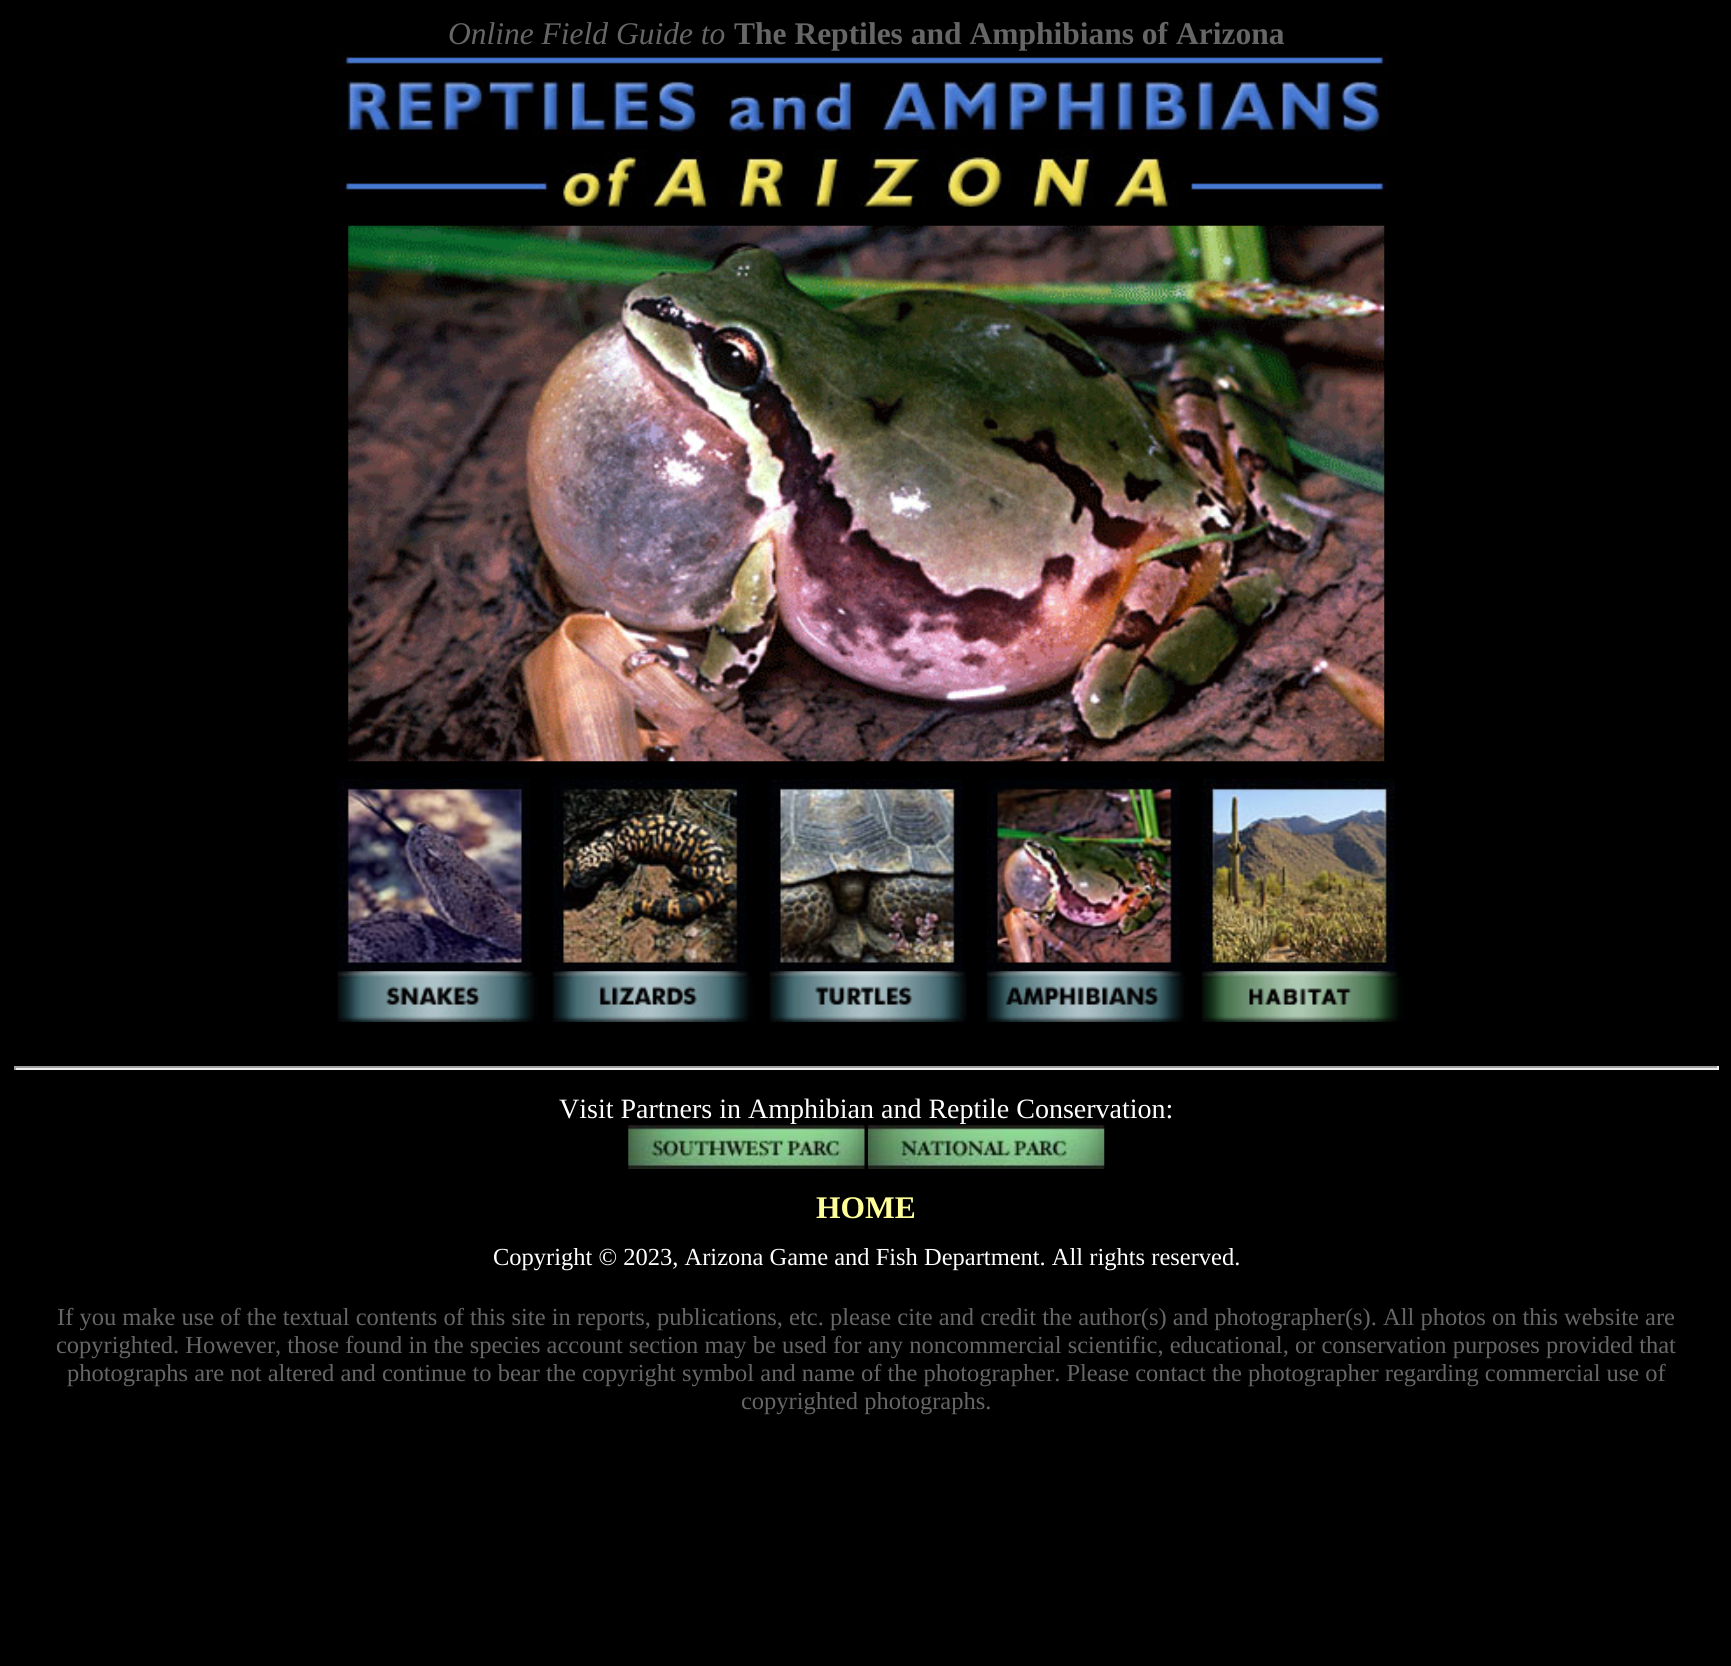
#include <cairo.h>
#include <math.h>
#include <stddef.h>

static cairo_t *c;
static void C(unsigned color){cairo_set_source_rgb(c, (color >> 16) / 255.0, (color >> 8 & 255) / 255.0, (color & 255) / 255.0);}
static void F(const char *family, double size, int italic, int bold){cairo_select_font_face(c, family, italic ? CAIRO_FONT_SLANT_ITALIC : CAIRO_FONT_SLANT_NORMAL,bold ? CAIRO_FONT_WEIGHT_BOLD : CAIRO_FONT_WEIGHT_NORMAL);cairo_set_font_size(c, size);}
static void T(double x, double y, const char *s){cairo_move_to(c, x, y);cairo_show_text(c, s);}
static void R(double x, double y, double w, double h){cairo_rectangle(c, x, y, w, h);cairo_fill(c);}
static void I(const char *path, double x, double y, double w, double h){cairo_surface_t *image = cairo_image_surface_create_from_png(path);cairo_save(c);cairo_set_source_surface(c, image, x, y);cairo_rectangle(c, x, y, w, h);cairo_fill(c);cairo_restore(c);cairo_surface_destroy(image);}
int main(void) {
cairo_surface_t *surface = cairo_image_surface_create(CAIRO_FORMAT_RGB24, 1731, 1666);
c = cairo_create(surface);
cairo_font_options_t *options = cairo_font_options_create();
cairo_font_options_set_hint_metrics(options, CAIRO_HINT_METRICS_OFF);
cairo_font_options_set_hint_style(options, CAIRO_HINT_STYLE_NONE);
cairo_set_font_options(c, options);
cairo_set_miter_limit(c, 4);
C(0x000000);
cairo_paint(c);
F("Liberation Serif",31.5,1,0);
C(0x666666);
T(448,44,"Online Field Guide to");
F("Liberation Serif",31.5,0,1);
T(734,44,"The Reptiles and Amphibians of Arizona");
I("1.png",338,52,1050,155);
I("2.png",348,225,1037,537);
I("3.png",338,779,192,192);
I("4.png",553,779,193,193);
I("5.png",770,779,193,192);
I("6.png",987,779,193,192);
I("7.png",1202,778,193,194);
I("8.png",337,971,202,51);
I("9.png",552,971,202,51);
I("10.png",769,971,198,51);
I("11.png",985,971,203,51);
I("12.png",1201,971,203,51);
C(0x9f9f9f);
R(14,1066,1705,2);
C(0xeeeeee);
R(1717,1066,2,4);
R(14,1068,1705,2);
C(0x9f9f9f);
R(14,1066,2,4);
F("Liberation Serif",28,0,0);
C(0xffffff);
T(559,1118,"Visit Partners in Amphibian and Reptile Conservation:");
I("13.png",628,1125,237,44);
I("14.png",868,1125,237,44);
F("Liberation Serif",31.5,0,1);
C(0xffff99);
T(816,1218,"HOME");
F("Liberation Serif",24.5,0,0);
C(0xffffff);
T(493,1265,"Copyright © 2023, Arizona Game and Fish Department. All rights reserved.");
C(0x666666);
T(57,1325,"If you make use of the textual contents of this site in reports, publications, etc. please cite and credit the author(s) and photographer(s). All photos on this website are");
T(56,1353,"copyrighted. However, those found in the species account section may be used for any noncommercial scientific, educational, or conservation purposes provided that");
T(67,1381,"photographs are not altered and continue to bear the copyright symbol and name of the photographer. Please contact the photographer regarding commercial use of");
T(741,1409,"copyrighted photographs.");
cairo_surface_write_to_png(surface, "o.png");
cairo_font_options_destroy(options);
cairo_destroy(c);
cairo_surface_destroy(surface);
return 0;
}
